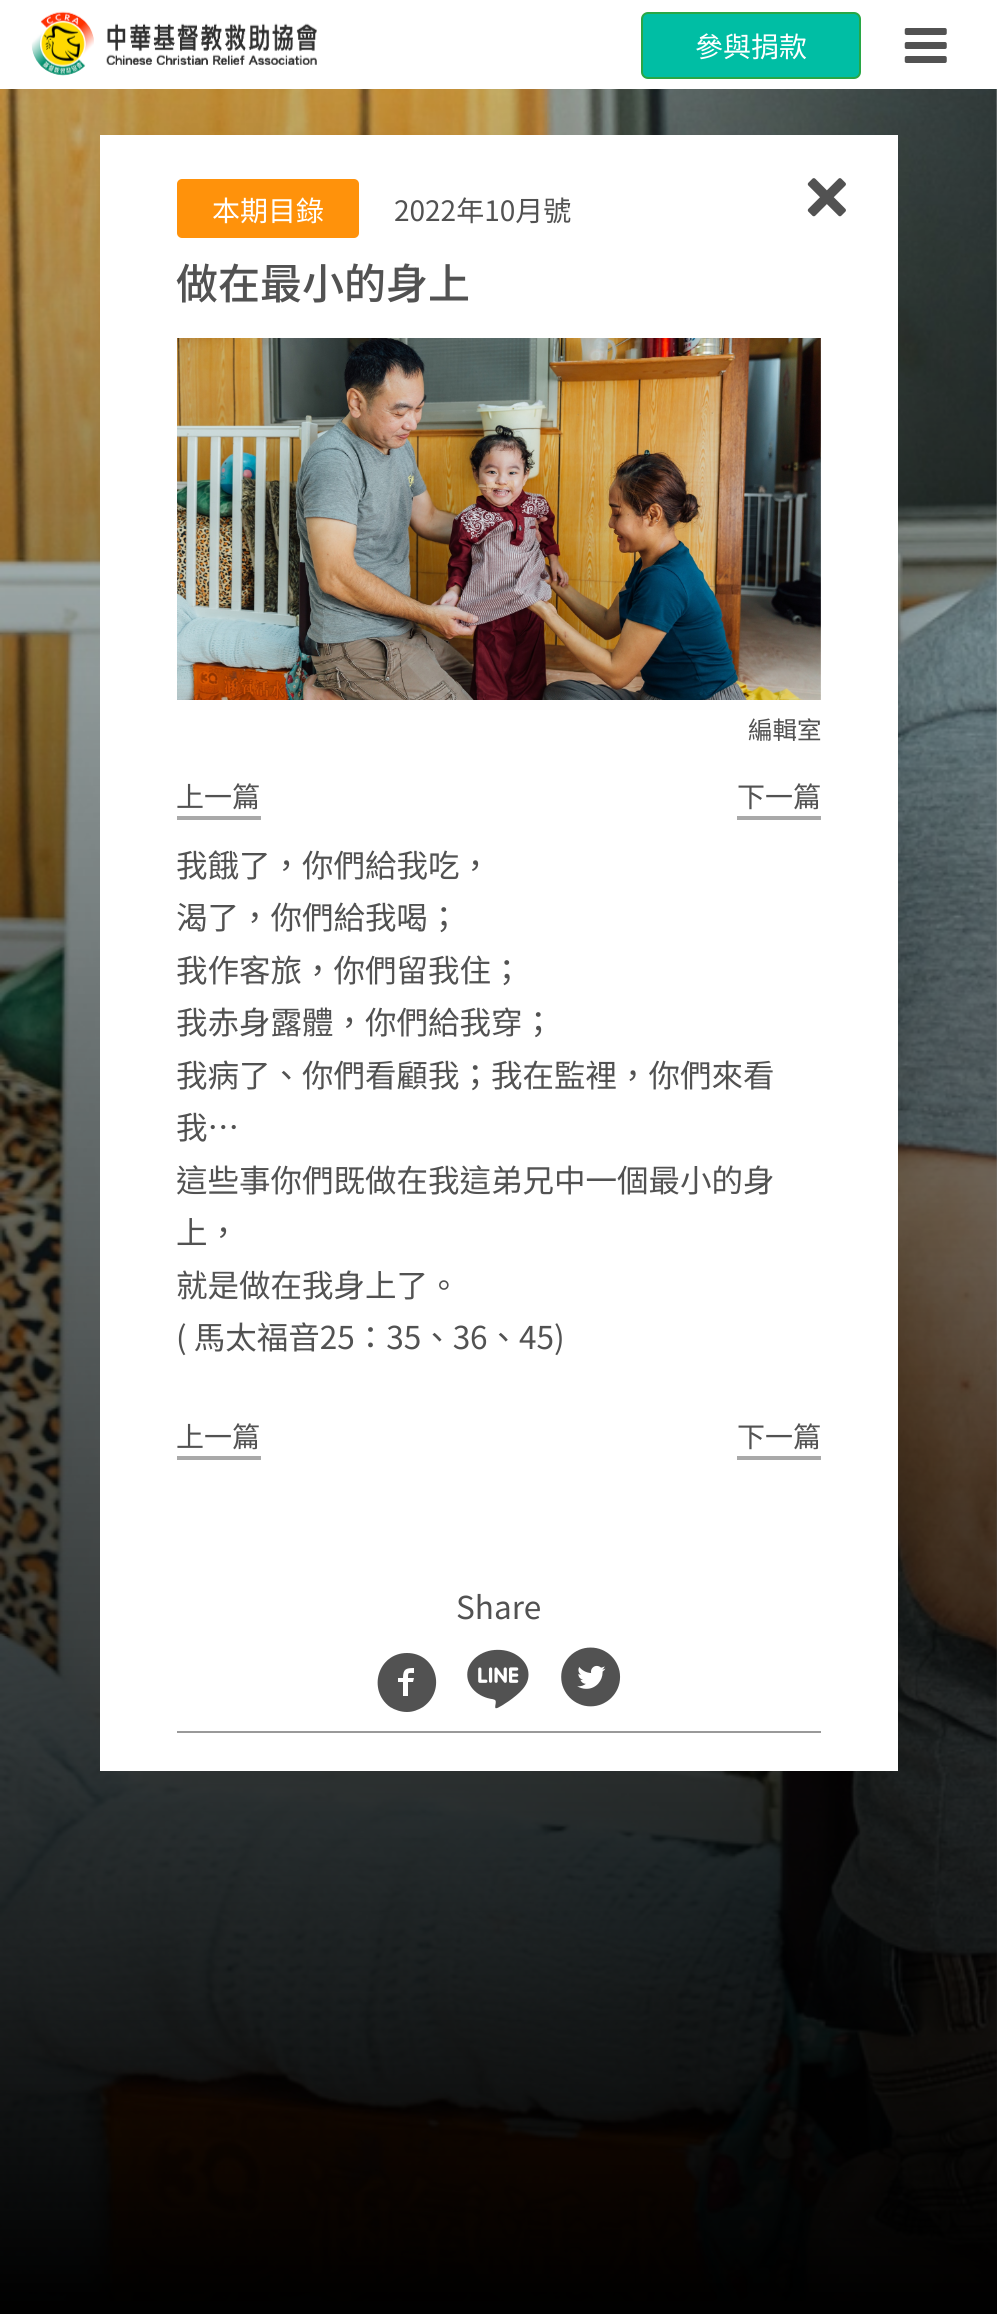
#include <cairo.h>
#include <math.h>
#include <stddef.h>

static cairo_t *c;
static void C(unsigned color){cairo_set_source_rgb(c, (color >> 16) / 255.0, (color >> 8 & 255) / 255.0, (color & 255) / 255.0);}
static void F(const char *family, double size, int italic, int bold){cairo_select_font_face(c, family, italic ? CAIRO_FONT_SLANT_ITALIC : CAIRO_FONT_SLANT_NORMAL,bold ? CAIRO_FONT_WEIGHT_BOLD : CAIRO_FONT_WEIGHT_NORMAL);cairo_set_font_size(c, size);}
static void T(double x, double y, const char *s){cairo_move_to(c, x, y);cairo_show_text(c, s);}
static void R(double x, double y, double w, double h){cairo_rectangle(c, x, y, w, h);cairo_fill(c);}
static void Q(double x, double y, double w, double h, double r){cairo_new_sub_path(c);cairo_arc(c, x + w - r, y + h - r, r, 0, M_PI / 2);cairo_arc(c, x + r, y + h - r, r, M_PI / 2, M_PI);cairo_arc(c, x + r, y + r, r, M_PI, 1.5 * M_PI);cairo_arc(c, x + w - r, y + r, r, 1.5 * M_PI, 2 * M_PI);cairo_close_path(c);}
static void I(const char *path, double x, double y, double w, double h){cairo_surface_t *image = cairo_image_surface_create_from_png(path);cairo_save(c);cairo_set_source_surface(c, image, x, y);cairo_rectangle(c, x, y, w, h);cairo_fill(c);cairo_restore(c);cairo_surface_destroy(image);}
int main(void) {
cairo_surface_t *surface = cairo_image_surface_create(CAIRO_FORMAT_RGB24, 997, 2314);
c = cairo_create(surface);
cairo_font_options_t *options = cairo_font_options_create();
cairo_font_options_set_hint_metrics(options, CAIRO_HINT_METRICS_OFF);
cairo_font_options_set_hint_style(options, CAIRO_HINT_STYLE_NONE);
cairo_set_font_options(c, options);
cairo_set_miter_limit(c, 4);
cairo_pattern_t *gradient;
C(0xffffff);
cairo_paint(c);
I("1.png",31,11,63,65);
I("2.png",106,23,211,42);
C(0x00bea4);
Q(642,13,218,65,6);
cairo_fill_preserve(c);
C(0x28a745);
cairo_stroke(c);
F("Noto Sans TC",28,0,0);
C(0xffffff);
T(695,57,"參與捐款");
I("3.png",904,28,43,35);
I("4.png",0,89,997,2212);
gradient = cairo_pattern_create_linear(499,0,499,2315);
cairo_pattern_add_color_stop_rgba(gradient,0,0,0,0,0);
cairo_pattern_add_color_stop_rgba(gradient,1,0,0,0,1);
cairo_set_source(c,gradient);
cairo_pattern_destroy(gradient);
R(0,89,997,2225);
C(0xffffff);
R(100,135,798,1636);
C(0xff920b);
Q(177,179,182,59,5);
cairo_fill(c);
C(0xffffff);
T(212,221,"本期目錄");
C(0x525252);
T(394,221,"2022年10月號");
I("5.png",807,178,39,39);
F("Noto Sans TC Medium",42,0,0);
T(176,299,"做在最小的身上");
I("6.png",177,338,644,362);
F("Noto Sans TC",24.5,0,0);
T(748,739,"編輯室");
C(0xa9a9a9);
R(177,816,84,4);
F("Noto Sans TC",28,0,0);
C(0x525252);
T(176,807,"上一篇");
C(0xa9a9a9);
R(737,816,84,4);
C(0x525252);
T(737,807,"下一篇");
F("Noto Sans TC",31.5,0,0);
T(176,877,"我餓了，你們給我吃，");
T(176,929,"渴了，你們給我喝；");
T(176,982,"我作客旅，你們留我住；");
T(176,1034,"我赤身露體，你們給我穿；");
T(176,1087,"我病了、你們看顧我；我在監裡，你們來看");
T(176,1139,"我…");
T(176,1192,"這些事你們既做在我這弟兄中一個最小的身");
T(176,1244,"上，");
T(176,1297,"就是做在我身上了。");
T(176,1349,"( 馬太福音25：35、36、45)");
C(0xa9a9a9);
R(177,1456,84,4);
F("Noto Sans TC",28,0,0);
C(0x525252);
T(176,1447,"上一篇");
C(0xa9a9a9);
R(737,1456,84,4);
C(0x525252);
T(737,1447,"下一篇");
F("Noto Sans TC",31.5,0,0);
T(456,1619,"Share");
cairo_new_path(c);
cairo_move_to(c,407,1653);
cairo_curve_to(c,378,1653,367,1690,390,1707);
cairo_curve_to(c,395,1710,401,1712,407,1712);
cairo_curve_to(c,413,1712,418,1710,423,1707);
cairo_curve_to(c,447,1690,436,1653,407,1653);
cairo_close_path(c);
cairo_move_to(c,414,1673);
cairo_curve_to(c,408,1673,408,1672,408,1678);
cairo_line_to(c,414,1678);
cairo_line_to(c,413,1682);
cairo_line_to(c,408,1682);
cairo_line_to(c,408,1696);
cairo_line_to(c,403,1696);
cairo_line_to(c,403,1682);
cairo_line_to(c,398,1682);
cairo_line_to(c,398,1678);
cairo_line_to(c,403,1678);
cairo_curve_to(c,403,1669,406,1668,414,1668);
cairo_close_path(c);
cairo_fill(c);
I("7.png",467,1649,62,60);
I("8.png",561,1647,60,60);
C(0x999999);
R(177,1731,644,2);
cairo_surface_write_to_png(surface, "o.png");
cairo_font_options_destroy(options);
cairo_destroy(c);
cairo_surface_destroy(surface);
return 0;
}
